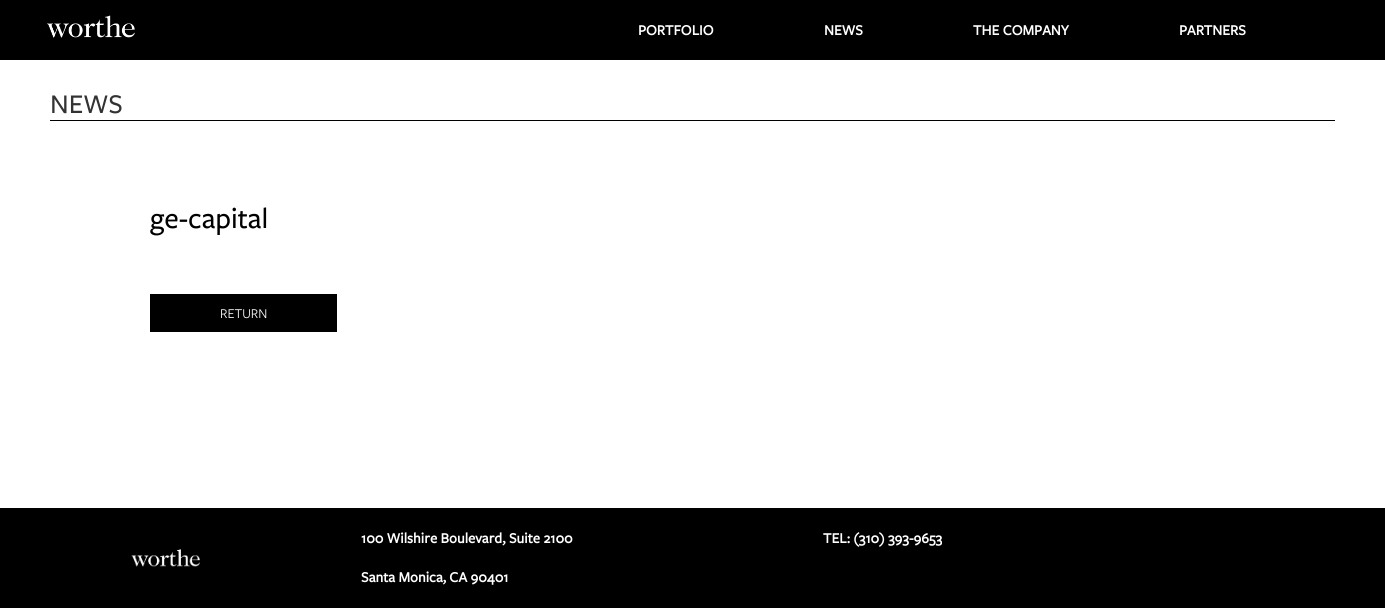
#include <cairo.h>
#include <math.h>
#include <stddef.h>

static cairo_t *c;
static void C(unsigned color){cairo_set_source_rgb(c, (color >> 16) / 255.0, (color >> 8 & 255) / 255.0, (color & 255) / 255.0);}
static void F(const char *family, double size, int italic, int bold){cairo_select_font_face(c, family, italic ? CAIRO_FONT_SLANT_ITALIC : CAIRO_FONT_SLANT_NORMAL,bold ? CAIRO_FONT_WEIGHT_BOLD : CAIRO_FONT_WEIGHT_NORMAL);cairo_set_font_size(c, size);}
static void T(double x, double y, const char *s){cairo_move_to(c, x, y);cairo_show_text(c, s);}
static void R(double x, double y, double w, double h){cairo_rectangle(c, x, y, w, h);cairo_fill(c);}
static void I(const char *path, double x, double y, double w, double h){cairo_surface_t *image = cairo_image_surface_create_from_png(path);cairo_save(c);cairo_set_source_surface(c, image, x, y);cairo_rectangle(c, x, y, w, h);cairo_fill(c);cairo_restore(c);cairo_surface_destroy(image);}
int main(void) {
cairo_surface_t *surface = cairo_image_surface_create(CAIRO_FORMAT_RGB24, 1385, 608);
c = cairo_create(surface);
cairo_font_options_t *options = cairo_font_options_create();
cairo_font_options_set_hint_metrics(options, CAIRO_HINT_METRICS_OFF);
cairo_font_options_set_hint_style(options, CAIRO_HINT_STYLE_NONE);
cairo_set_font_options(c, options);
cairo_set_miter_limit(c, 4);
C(0xffffff);
cairo_paint(c);
C(0x000000);
R(0,0,1385,60);
I("1.png",47,15,88,23);
F("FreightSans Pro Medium",15,0,1);
C(0xffffff);
T(638,35,"PORTFOLIO");
T(824,35,"NEWS");
T(973,35,"THE COMPANY");
T(1179,35,"PARTNERS");
C(0x000000);
R(50,120,1285,1);
F("FreightSans Pro Medium Medium",28,0,0);
C(0x333333);
T(50,113,"NEWS");
F("FreightSans Pro Medium Medium",30,0,0);
C(0x000000);
T(150,228,"ge-capital");
R(150,294,187,38);
F("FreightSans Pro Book",14,0,0);
C(0xffffff);
T(220,318,"RETURN");
C(0x000000);
R(0,508,1385,100);
F("FreightSans Pro Medium",15,0,1);
C(0xffffff);
T(361,543,"100 Wilshire Boulevard, Suite 2100");
T(361,582,"Santa Monica, CA 90401");
T(823,543,"TEL: (310) 393-9653");
I("2.png",131,549,69,18);
cairo_surface_write_to_png(surface, "o.png");
cairo_font_options_destroy(options);
cairo_destroy(c);
cairo_surface_destroy(surface);
return 0;
}
